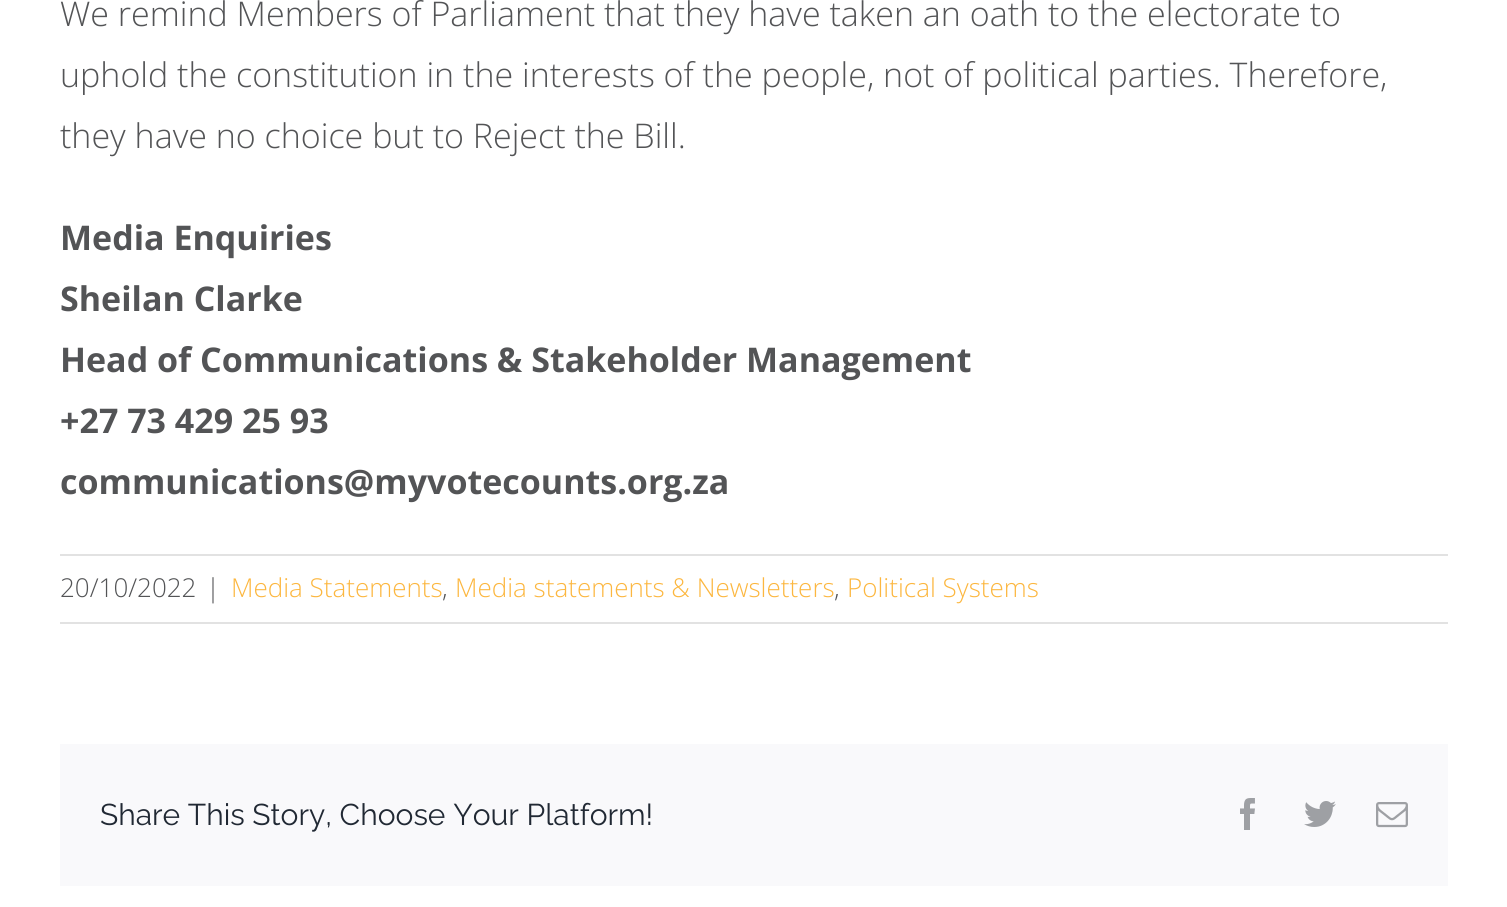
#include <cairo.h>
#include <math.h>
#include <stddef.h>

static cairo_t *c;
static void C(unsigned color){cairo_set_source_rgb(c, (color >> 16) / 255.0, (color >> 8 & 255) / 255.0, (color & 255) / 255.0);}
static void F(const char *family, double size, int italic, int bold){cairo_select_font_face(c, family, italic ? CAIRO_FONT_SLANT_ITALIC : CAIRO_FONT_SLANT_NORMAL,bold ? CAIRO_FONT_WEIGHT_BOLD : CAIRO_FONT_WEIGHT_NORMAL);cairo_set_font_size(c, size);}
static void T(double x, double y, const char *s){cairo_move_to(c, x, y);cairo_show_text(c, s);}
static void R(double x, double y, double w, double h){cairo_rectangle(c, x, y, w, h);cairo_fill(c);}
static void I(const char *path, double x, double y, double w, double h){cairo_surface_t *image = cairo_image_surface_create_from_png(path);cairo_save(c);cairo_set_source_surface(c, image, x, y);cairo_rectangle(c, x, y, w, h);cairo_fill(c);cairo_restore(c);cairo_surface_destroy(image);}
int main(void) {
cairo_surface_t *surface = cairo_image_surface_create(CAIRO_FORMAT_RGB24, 1507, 907);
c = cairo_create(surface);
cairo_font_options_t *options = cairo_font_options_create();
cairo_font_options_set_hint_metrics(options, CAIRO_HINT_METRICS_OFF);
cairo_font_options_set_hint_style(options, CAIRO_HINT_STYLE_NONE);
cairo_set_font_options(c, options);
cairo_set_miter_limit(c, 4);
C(0xffffff);
cairo_paint(c);
F("Open Sans Light",34,0,0);
C(0x535456);
T(60,26,"We remind Members of Parliament that they have taken an oath to the electorate to");
T(60,87,"uphold the constitution in the interests of the people, not of political parties. Therefore,");
T(60,148,"they have no choice but to Reject the Bill.");
F("Open Sans",34,0,1);
T(60,250,"Media Enquiries");
T(60,311,"Sheilan Clarke");
T(60,372,"Head of Communications & Stakeholder Management");
T(60,433,"+27 73 429 25 93");
T(60,494,"communications@myvotecounts.org.za");
C(0xe2e2e2);
R(60,554,1388,2);
R(60,622,1388,2);
F("Open Sans Light",26,0,0);
C(0x535456);
T(60,597,"20/10/2022");
T(206,597,"|");
C(0xfcb740);
T(231,597,"Media Statements");
C(0x535456);
T(442,597,",");
C(0xfcb740);
T(455,597,"Media statements & Newsletters");
C(0x535456);
T(834,597,",");
C(0xfcb740);
T(847,597,"Political Systems");
C(0xf9f9fb);
R(60,744,1388,142);
F("Raleway Thin",30,0,0);
C(0x212934);
T(100,825,"Share This Story, Choose Your Platform!");
I("1.png",1240,798,15,32);
I("2.png",1304,801,32,26);
I("3.png",1376,802,32,26);
cairo_surface_write_to_png(surface, "o.png");
cairo_font_options_destroy(options);
cairo_destroy(c);
cairo_surface_destroy(surface);
return 0;
}
